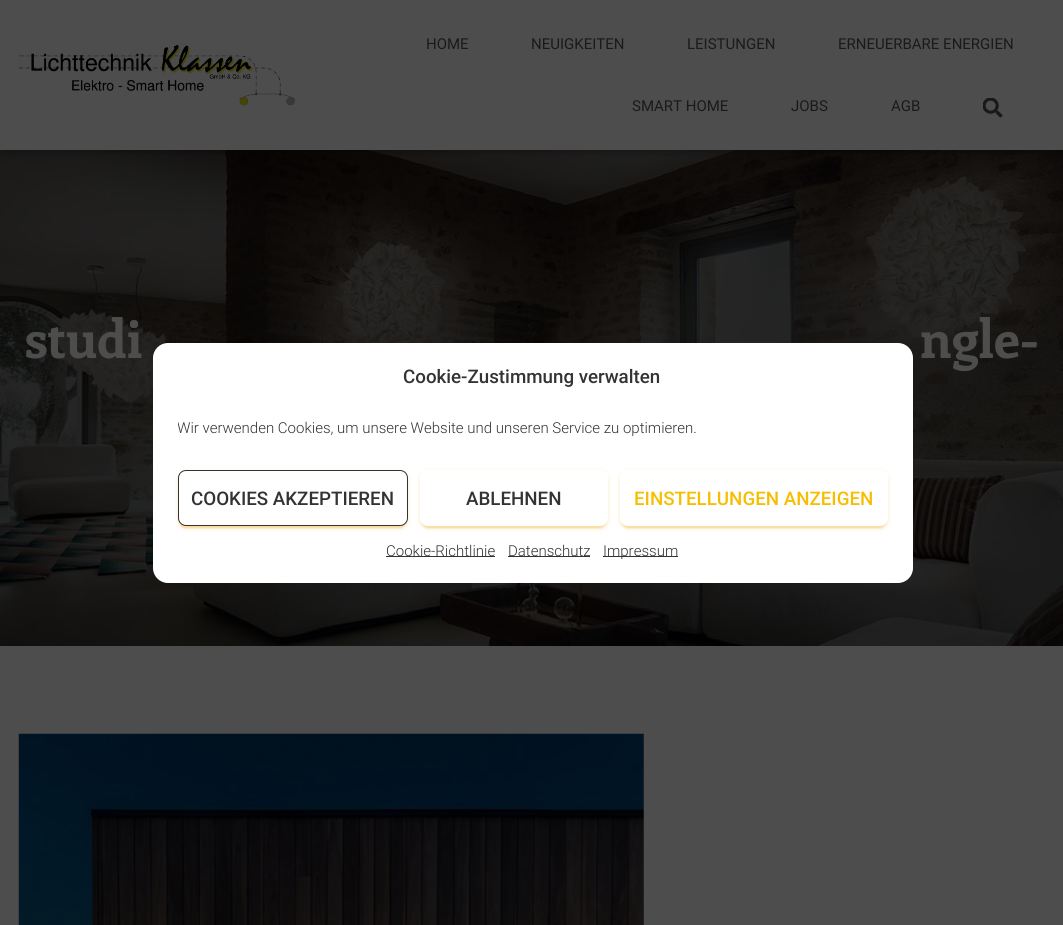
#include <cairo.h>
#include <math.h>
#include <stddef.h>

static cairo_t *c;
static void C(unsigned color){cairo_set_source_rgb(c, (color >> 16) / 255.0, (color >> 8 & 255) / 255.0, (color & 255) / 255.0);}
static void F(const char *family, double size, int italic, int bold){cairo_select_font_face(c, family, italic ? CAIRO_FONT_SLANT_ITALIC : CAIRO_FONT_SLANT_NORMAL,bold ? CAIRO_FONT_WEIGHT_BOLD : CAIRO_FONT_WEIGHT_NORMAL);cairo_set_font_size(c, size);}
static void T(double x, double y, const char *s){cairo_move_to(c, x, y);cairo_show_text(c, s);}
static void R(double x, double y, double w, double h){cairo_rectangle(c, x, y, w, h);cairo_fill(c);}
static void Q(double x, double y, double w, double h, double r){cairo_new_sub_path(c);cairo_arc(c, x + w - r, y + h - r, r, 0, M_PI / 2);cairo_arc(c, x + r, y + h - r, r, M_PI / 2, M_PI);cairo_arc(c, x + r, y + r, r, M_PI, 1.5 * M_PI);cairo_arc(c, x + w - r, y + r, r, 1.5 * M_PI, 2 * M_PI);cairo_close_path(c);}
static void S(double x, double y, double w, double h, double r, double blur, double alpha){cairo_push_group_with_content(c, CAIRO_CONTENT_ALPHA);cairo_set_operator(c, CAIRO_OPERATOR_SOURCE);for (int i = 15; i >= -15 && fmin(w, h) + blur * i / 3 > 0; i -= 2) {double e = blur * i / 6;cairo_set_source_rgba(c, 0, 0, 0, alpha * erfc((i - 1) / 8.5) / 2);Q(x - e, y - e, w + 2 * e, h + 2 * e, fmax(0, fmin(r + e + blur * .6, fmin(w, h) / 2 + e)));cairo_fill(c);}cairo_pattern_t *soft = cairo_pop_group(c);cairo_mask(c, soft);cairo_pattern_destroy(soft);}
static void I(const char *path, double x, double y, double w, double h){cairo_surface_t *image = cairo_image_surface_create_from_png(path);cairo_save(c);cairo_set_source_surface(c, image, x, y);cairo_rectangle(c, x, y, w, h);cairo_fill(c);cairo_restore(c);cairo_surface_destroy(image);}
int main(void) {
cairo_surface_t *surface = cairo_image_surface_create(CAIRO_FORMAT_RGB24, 1063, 925);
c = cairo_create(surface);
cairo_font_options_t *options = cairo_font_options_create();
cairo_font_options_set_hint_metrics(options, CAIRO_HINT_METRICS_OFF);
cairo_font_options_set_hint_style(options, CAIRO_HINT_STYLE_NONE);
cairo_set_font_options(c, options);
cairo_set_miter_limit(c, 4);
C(0xffffff);
cairo_paint(c);
I("3.png",0,150,1063,496);
C(0x000000);
S(3,8,1058,145,0,3,.1);
S(0,1,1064,150,0,6,.12);
S(8,9,1048,135,0,6,.42);
C(0x4d4d4d);
R(0,0,1063,150);
I("1.png",19,45,276,61);
F("Roboto",15,0,0);
C(0x1a1a1a);
T(426,49,"HOME");
T(531,49,"NEUIGKEITEN");
T(687,49,"LEISTUNGEN");
T(838,49,"ERNEUERBARE ENERGIEN");
T(632,111,"SMART HOME");
T(791,111,"JOBS");
T(891,111,"AGB");
I("2.png",983,98,20,20);
F("Enriqueta",52.5,0,1);
C(0x4d4d4d);
T(25,358,"studi");
T(920,358,"ngle-");
R(0,646,1063,279);
I("4.png",18,733,626,192);
C(0xffffff);
Q(153,343,760,240,15);
cairo_fill(c);
F("Roboto Medium",18.75,0,0);
C(0x333333);
T(403,383,"Cookie-Zustimmung verwalten");
cairo_save(c);
cairo_rectangle(c,178,416,710,29);
cairo_clip(c);
F("Roboto Light",15,0,0);
T(177,433,"Wir verwenden Cookies, um unsere Website und unseren Service zu optimieren.");
cairo_restore(c);
C(0xefa300);
S(178,471,230,57,8,3,.12);
S(180,476,225,52,5,.5,.2);
S(178,473,230,56,8,1,.14);
C(0xffffff);
Q(178.5,470.5,229,55,7.5);
cairo_fill_preserve(c);
C(0x333333);
cairo_set_line_width(c,1);
cairo_stroke(c);
T(191,505,"COOKIES AKZEPTIEREN");
C(0xefa300);
S(420,471,188,57,8,3,.12);
S(423,476,182,52,5,.5,.2);
S(420,473,188,56,8,1,.14);
C(0xffffff);
Q(420.5,470.5,187,55,7.5);
cairo_fill_preserve(c);
cairo_stroke(c);
C(0x333333);
T(466,505,"ABLEHNEN");
C(0xefa300);
S(620,471,268,57,8,3,.12);
S(623,476,262,52,5,.5,.2);
S(620,473,268,56,8,1,.14);
C(0xffffff);
Q(620.5,470.5,267,55,7.5);
cairo_fill_preserve(c);
cairo_stroke(c);
C(0xf7bd00);
T(634,505,"EINSTELLUNGEN ANZEIGEN");
C(0x333333);
R(386,556,109,1);
F("Roboto Light",15,0,0);
T(386,556,"Cookie-Richtlinie");
R(508,556,82,1);
T(508,556,"Datenschutz");
R(603,556,75,1);
T(603,556,"Impressum");
cairo_surface_write_to_png(surface, "o.png");
cairo_font_options_destroy(options);
cairo_destroy(c);
cairo_surface_destroy(surface);
return 0;
}
